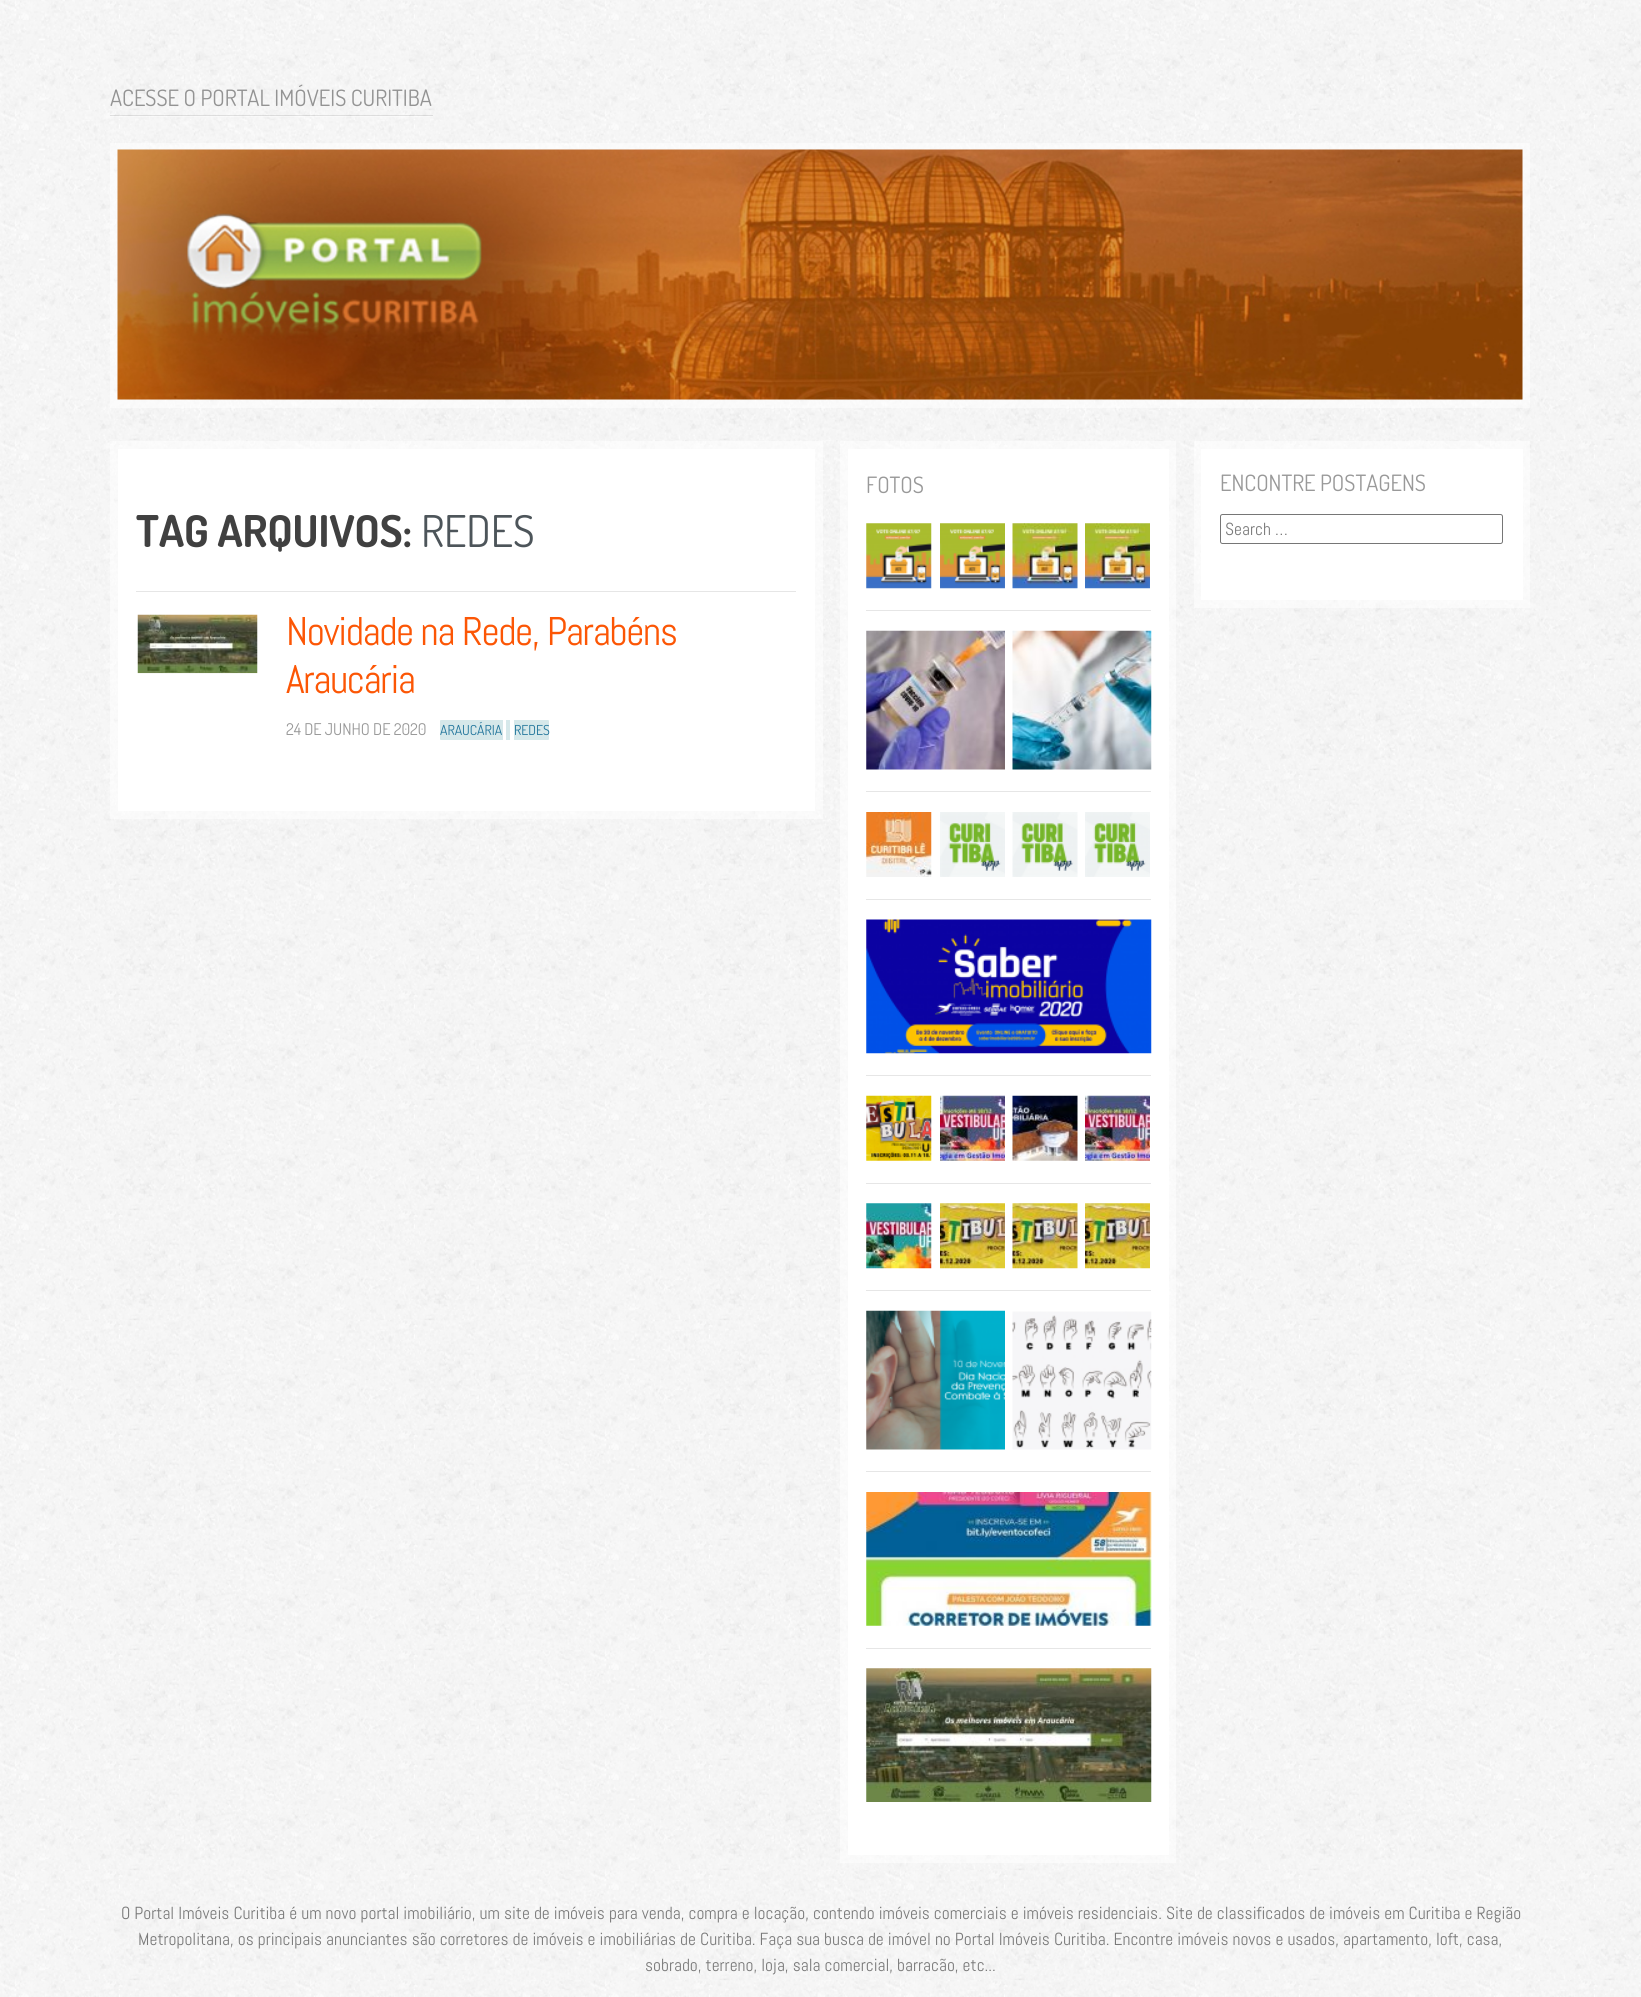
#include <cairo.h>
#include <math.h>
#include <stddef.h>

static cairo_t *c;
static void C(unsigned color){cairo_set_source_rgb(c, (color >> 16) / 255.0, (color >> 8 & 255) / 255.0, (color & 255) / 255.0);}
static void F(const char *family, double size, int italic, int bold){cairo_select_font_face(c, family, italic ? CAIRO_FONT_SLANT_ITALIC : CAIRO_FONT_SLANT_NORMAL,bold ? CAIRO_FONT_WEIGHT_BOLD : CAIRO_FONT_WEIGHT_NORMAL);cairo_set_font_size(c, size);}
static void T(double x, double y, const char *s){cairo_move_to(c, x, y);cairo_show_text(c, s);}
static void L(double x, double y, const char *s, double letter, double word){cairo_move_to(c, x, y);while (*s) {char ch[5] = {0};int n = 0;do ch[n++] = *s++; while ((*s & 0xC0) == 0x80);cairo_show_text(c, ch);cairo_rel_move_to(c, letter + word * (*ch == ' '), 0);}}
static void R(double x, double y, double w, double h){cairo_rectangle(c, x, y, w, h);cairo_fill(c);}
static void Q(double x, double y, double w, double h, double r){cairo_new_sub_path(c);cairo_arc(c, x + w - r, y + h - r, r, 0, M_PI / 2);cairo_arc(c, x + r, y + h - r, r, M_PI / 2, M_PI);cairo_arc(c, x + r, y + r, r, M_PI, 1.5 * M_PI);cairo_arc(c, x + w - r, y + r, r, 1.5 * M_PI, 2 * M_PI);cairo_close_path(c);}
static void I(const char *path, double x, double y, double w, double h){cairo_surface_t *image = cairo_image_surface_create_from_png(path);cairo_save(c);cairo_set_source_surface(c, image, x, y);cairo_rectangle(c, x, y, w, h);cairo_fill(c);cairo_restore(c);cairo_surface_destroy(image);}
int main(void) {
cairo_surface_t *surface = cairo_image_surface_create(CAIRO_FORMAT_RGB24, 1641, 1997);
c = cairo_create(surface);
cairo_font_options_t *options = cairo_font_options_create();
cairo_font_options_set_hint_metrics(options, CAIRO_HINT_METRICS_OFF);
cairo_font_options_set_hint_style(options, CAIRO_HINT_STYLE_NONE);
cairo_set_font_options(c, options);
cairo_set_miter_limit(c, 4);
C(0xffffff);
cairo_paint(c);
I("1.png",0,0,1641,1997);
cairo_set_source_rgba(c,1,1,1,0.4);
R(110,116,323,1);
cairo_set_source_rgba(c,0,0,0,0.1);
R(110,115,323,1);
F("Dosis",22.5,0,0);
C(0x939393);
T(110,106,"ACESSE O PORTAL IMÓVEIS CURITIBA");
cairo_rectangle(c,114,147,1412,257);
cairo_set_source_rgba(c,1,1,1,0.5);
cairo_set_line_width(c,8);
cairo_stroke(c);
I("2.png",117,149,1406,251);
C(0xffffff);
R(848,449,321,1406);
cairo_rectangle(c,844,445,328,1414);
cairo_set_source_rgba(c,1,1,1,0.5);
cairo_stroke(c);
C(0x999999);
T(866,493,"FOTOS");
C(0xe6e6e6);
R(866,610,285,1);
I("3.png",866,523,66,66);
I("4.png",940,523,65,66);
I("5.png",1012,523,66,66);
I("6.png",1085,523,65,66);
R(866,791,285,1);
I("7.png",866,630,139,140);
I("8.png",1012,630,140,140);
R(866,899,285,1);
I("9.png",866,812,66,65);
I("10.png",940,812,65,65);
I("11.png",1012,812,66,65);
I("12.png",1085,812,65,65);
R(866,1075,285,1);
I("13.png",866,919,286,135);
R(866,1183,285,1);
I("14.png",866,1095,66,66);
I("15.png",940,1095,65,66);
I("16.png",1012,1095,66,66);
I("17.png",1085,1095,65,66);
R(866,1290,285,1);
I("18.png",866,1203,66,66);
I("19.png",940,1203,65,66);
I("20.png",1012,1203,66,66);
I("21.png",1085,1203,65,66);
R(866,1471,285,1);
I("22.png",866,1310,139,140);
I("23.png",1012,1311,140,139);
R(866,1648,285,1);
I("24.png",866,1492,286,134);
I("25.png",866,1668,286,134);
C(0xffffff);
R(1201,449,322,151);
cairo_rectangle(c,1198,445,328,159);
cairo_set_source_rgba(c,1,1,1,0.5);
cairo_stroke(c);
C(0x999999);
T(1220,491,"ENCONTRE POSTAGENS");
Q(1220.5,514.5,282,29,2);
C(0x767676);
cairo_set_line_width(c,1);
cairo_stroke(c);
F("Abel",17.5,0,0);
C(0x7a7a7a);
T(1225,535,"Search …");
C(0xffffff);
R(118,449,697,362);
cairo_rectangle(c,114,445,705,370);
cairo_set_source_rgba(c,1,1,1,0.5);
cairo_set_line_width(c,8);
cairo_stroke(c);
F("Dosis",43.75,0,1);
C(0x404040);
T(136,547,"TAG ARQUIVOS:");
F("Dosis",43.75,0,0);
C(0x4d555a);
T(421,547,"REDES");
C(0xe6e6e6);
R(136,591,660,1);
I("26.png",137,614,121,60);
F("Abel",40,0,0);
C(0xfc5605);
L(286,645,"Novidade na Rede, Parabéns",-1.4,0);
L(286,693,"Araucária",-1.4,0);
F("Dosis",16.25,0,0);
C(0x999999);
T(286,735,"24 DE JUNHO DE 2020");
C(0xd6e8ea);
cairo_new_path(c);
cairo_move_to(c,441,720);
cairo_line_to(c,503,720);
cairo_line_to(c,503,740);
cairo_line_to(c,441,740);
cairo_curve_to(c,440.5,740,440,739.5,440,739);
cairo_line_to(c,440,721);
cairo_curve_to(c,440,720.5,440.5,720,441,720);
cairo_close_path(c);
cairo_fill(c);
F("Dosis",13.75,0,0);
C(0x21759b);
T(440,735,"ARAUCÁRIA");
C(0xd6e8ea);
cairo_new_path(c);
cairo_move_to(c,514,720);
cairo_line_to(c,548,720);
cairo_curve_to(c,548.5,720,549,720.5,549,721);
cairo_line_to(c,549,739);
cairo_curve_to(c,549,739.5,548.5,740,548,740);
cairo_line_to(c,514,740);
cairo_close_path(c);
cairo_fill(c);
C(0x21759b);
T(514,735,"REDES");
C(0xd6e8ea);
R(506,720,4,20);
F("Abel",17.5,0,0);
C(0x7a7a7a);
T(121,1919,"O Portal Imóveis Curitiba é um novo portal imobiliário, um site de imóveis para venda, compra e locação, contendo imóveis comerciais e imóveis residenciais. Site de classificados de imóveis em Curitiba e Região");
T(138,1945,"Metropolitana, os principais anunciantes são corretores de imóveis e imobiliárias de Curitiba. Faça sua busca de imóvel no Portal Imóveis Curitiba. Encontre imóveis novos e usados, apartamento, loft, casa,");
T(645,1971,"sobrado, terreno, loja, sala comercial, barracão, etc...");
cairo_surface_write_to_png(surface, "o.png");
cairo_font_options_destroy(options);
cairo_destroy(c);
cairo_surface_destroy(surface);
return 0;
}
